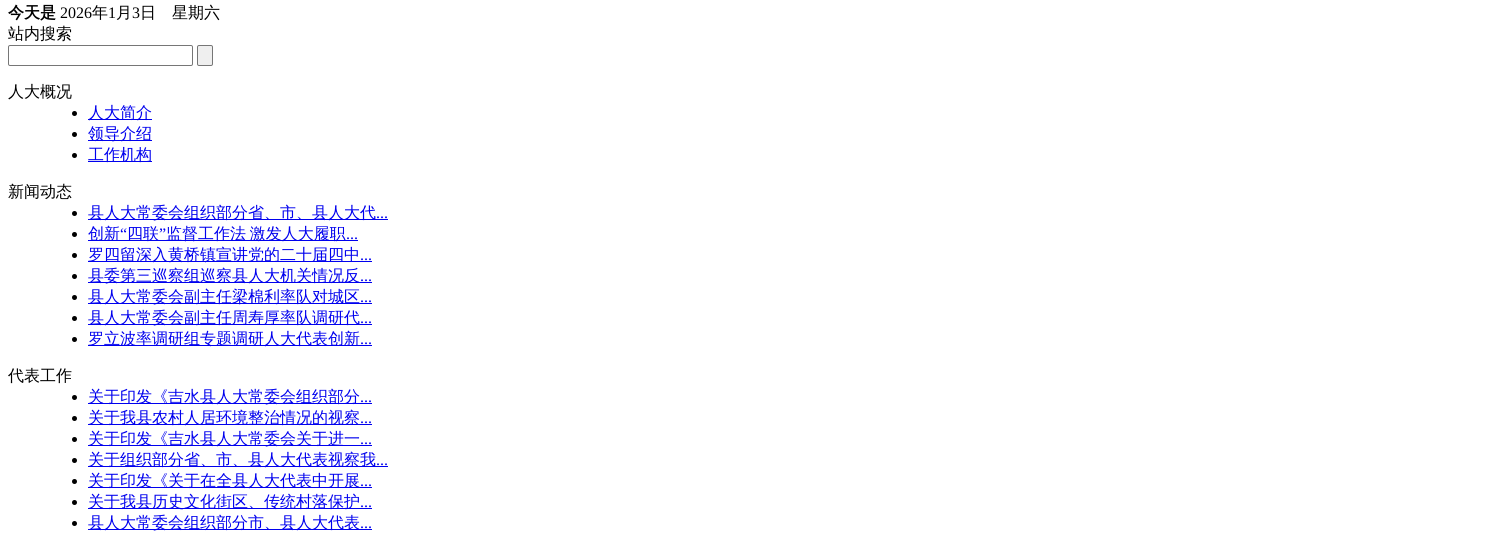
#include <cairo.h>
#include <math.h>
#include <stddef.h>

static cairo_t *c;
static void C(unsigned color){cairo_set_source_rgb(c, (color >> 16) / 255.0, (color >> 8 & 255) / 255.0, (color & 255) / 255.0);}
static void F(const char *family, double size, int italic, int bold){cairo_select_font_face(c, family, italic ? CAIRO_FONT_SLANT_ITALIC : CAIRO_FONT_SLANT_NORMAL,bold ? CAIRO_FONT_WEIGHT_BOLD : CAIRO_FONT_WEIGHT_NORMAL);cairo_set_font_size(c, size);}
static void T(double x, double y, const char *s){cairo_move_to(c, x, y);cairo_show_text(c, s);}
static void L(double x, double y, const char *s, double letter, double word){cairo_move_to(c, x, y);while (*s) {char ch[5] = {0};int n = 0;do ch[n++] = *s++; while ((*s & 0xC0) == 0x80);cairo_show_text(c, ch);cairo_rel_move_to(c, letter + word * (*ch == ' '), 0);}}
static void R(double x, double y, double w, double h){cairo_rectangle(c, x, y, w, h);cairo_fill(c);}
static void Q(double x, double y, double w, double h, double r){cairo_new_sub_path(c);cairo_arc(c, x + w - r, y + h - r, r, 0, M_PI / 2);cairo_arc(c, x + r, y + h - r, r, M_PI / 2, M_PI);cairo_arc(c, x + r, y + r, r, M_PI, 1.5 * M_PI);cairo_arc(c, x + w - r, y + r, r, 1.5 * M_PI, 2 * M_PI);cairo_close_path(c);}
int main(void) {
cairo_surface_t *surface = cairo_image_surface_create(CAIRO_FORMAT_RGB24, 1506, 534);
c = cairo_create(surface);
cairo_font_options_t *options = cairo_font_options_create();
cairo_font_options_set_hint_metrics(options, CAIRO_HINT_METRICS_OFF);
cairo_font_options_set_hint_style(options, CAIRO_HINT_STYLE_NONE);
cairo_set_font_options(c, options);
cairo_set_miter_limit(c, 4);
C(0xffffff);
cairo_paint(c);
F("WenQuanYi Zen Hei",16,0,1);
C(0x000000);
T(8,18,"今天是");
F("Liberation Serif",16,0,0);
T(60,18,"2026");
F("WenQuanYi Zen Hei Medium",16,0,0);
T(92,18,"年");
F("Liberation Serif",16,0,0);
T(108,18,"1");
F("WenQuanYi Zen Hei Medium",16,0,0);
T(116,18,"月");
F("Liberation Serif",16,0,0);
T(132,18,"3");
F("WenQuanYi Zen Hei Medium",16,0,0);
T(140,18,"日");
T(172,18,"星期六");
T(8,39,"站内搜索");
Q(8.5,45.5,184,20,1.5);
C(0x767676);
cairo_set_line_width(c,1);
cairo_stroke(c);
C(0xefefef);
Q(197.5,45.5,15,20,1.5);
cairo_fill_preserve(c);
C(0x767676);
cairo_stroke(c);
C(0x000000);
T(8,97,"人大概况");
cairo_new_path(c);
cairo_arc(c,74.5,113.5,2.5,0,2 * M_PI);
cairo_fill(c);
C(0x0000ee);
R(88,119,64,1);
T(88,118,"人大简介");
C(0x000000);
cairo_new_path(c);
cairo_arc(c,74.5,134.5,2.5,0,2 * M_PI);
cairo_fill(c);
C(0x0000ee);
R(88,140,64,1);
T(88,139,"领导介绍");
C(0x000000);
cairo_new_path(c);
cairo_arc(c,74.5,155.5,2.5,0,2 * M_PI);
cairo_fill(c);
C(0x0000ee);
R(88,161,64,1);
T(88,160,"工作机构");
C(0x000000);
T(8,197,"新闻动态");
cairo_new_path(c);
cairo_arc(c,74.5,213.5,2.5,0,2 * M_PI);
cairo_fill(c);
C(0x0000ee);
R(88,219,300,1);
T(88,218,"县人大常委会组织部分省、市、县人大代");
F("Liberation Serif",16,0,0);
T(376,218,"...");
R(88,240,270,1);
F("WenQuanYi Zen Hei Medium",16,0,0);
T(88,239,"创新");
F("Liberation Serif",16,0,0);
T(120,239,"“");
F("WenQuanYi Zen Hei Medium",16,0,0);
T(127,239,"四联");
F("Liberation Serif",16,0,0);
T(159,239,"”");
F("WenQuanYi Zen Hei Medium",16,0,0);
L(166,239,"监督工作法 激发人大履职",0,-1);
C(0x000000);
cairo_new_path(c);
cairo_arc(c,74.5,234.5,2.5,0,2 * M_PI);
cairo_fill(c);
F("Liberation Serif",16,0,0);
C(0x0000ee);
T(346,239,"...");
C(0x000000);
cairo_new_path(c);
cairo_arc(c,74.5,255.5,2.5,0,2 * M_PI);
cairo_fill(c);
C(0x0000ee);
R(88,261,284,1);
F("WenQuanYi Zen Hei Medium",16,0,0);
T(88,260,"罗四留深入黄桥镇宣讲党的二十届四中");
F("Liberation Serif",16,0,0);
T(360,260,"...");
C(0x000000);
cairo_new_path(c);
cairo_arc(c,74.5,276.5,2.5,0,2 * M_PI);
cairo_fill(c);
C(0x0000ee);
R(88,282,284,1);
F("WenQuanYi Zen Hei Medium",16,0,0);
T(88,281,"县委第三巡察组巡察县人大机关情况反");
F("Liberation Serif",16,0,0);
T(360,281,"...");
C(0x000000);
cairo_new_path(c);
cairo_arc(c,74.5,297.5,2.5,0,2 * M_PI);
cairo_fill(c);
C(0x0000ee);
R(88,303,284,1);
F("WenQuanYi Zen Hei Medium",16,0,0);
T(88,302,"县人大常委会副主任梁棉利率队对城区");
F("Liberation Serif",16,0,0);
T(360,302,"...");
C(0x000000);
cairo_new_path(c);
cairo_arc(c,74.5,318.5,2.5,0,2 * M_PI);
cairo_fill(c);
C(0x0000ee);
R(88,324,284,1);
F("WenQuanYi Zen Hei Medium",16,0,0);
T(88,323,"县人大常委会副主任周寿厚率队调研代");
F("Liberation Serif",16,0,0);
T(360,323,"...");
C(0x000000);
cairo_new_path(c);
cairo_arc(c,74.5,339.5,2.5,0,2 * M_PI);
cairo_fill(c);
C(0x0000ee);
R(88,345,284,1);
F("WenQuanYi Zen Hei Medium",16,0,0);
T(88,344,"罗立波率调研组专题调研人大代表创新");
F("Liberation Serif",16,0,0);
T(360,344,"...");
F("WenQuanYi Zen Hei Medium",16,0,0);
C(0x000000);
T(8,381,"代表工作");
cairo_new_path(c);
cairo_arc(c,74.5,397.5,2.5,0,2 * M_PI);
cairo_fill(c);
C(0x0000ee);
R(88,403,284,1);
T(88,402,"关于印发《吉水县人大常委会组织部分");
F("Liberation Serif",16,0,0);
T(360,402,"...");
C(0x000000);
cairo_new_path(c);
cairo_arc(c,74.5,418.5,2.5,0,2 * M_PI);
cairo_fill(c);
C(0x0000ee);
R(88,424,284,1);
F("WenQuanYi Zen Hei Medium",16,0,0);
T(88,423,"关于我县农村人居环境整治情况的视察");
F("Liberation Serif",16,0,0);
T(360,423,"...");
C(0x000000);
cairo_new_path(c);
cairo_arc(c,74.5,439.5,2.5,0,2 * M_PI);
cairo_fill(c);
C(0x0000ee);
R(88,445,284,1);
F("WenQuanYi Zen Hei Medium",16,0,0);
T(88,444,"关于印发《吉水县人大常委会关于进一");
F("Liberation Serif",16,0,0);
T(360,444,"...");
C(0x000000);
cairo_new_path(c);
cairo_arc(c,74.5,460.5,2.5,0,2 * M_PI);
cairo_fill(c);
C(0x0000ee);
R(88,466,300,1);
F("WenQuanYi Zen Hei Medium",16,0,0);
T(88,465,"关于组织部分省、市、县人大代表视察我");
F("Liberation Serif",16,0,0);
T(376,465,"...");
C(0x000000);
cairo_new_path(c);
cairo_arc(c,74.5,481.5,2.5,0,2 * M_PI);
cairo_fill(c);
C(0x0000ee);
R(88,487,284,1);
F("WenQuanYi Zen Hei Medium",16,0,0);
T(88,486,"关于印发《关于在全县人大代表中开展");
F("Liberation Serif",16,0,0);
T(360,486,"...");
C(0x000000);
cairo_new_path(c);
cairo_arc(c,74.5,502.5,2.5,0,2 * M_PI);
cairo_fill(c);
C(0x0000ee);
R(88,508,284,1);
F("WenQuanYi Zen Hei Medium",16,0,0);
T(88,507,"关于我县历史文化街区、传统村落保护");
F("Liberation Serif",16,0,0);
T(360,507,"...");
C(0x000000);
cairo_new_path(c);
cairo_arc(c,74.5,523.5,2.5,0,2 * M_PI);
cairo_fill(c);
C(0x0000ee);
R(88,529,284,1);
F("WenQuanYi Zen Hei Medium",16,0,0);
T(88,528,"县人大常委会组织部分市、县人大代表");
F("Liberation Serif",16,0,0);
T(360,528,"...");
cairo_surface_write_to_png(surface, "o.png");
cairo_font_options_destroy(options);
cairo_destroy(c);
cairo_surface_destroy(surface);
return 0;
}
